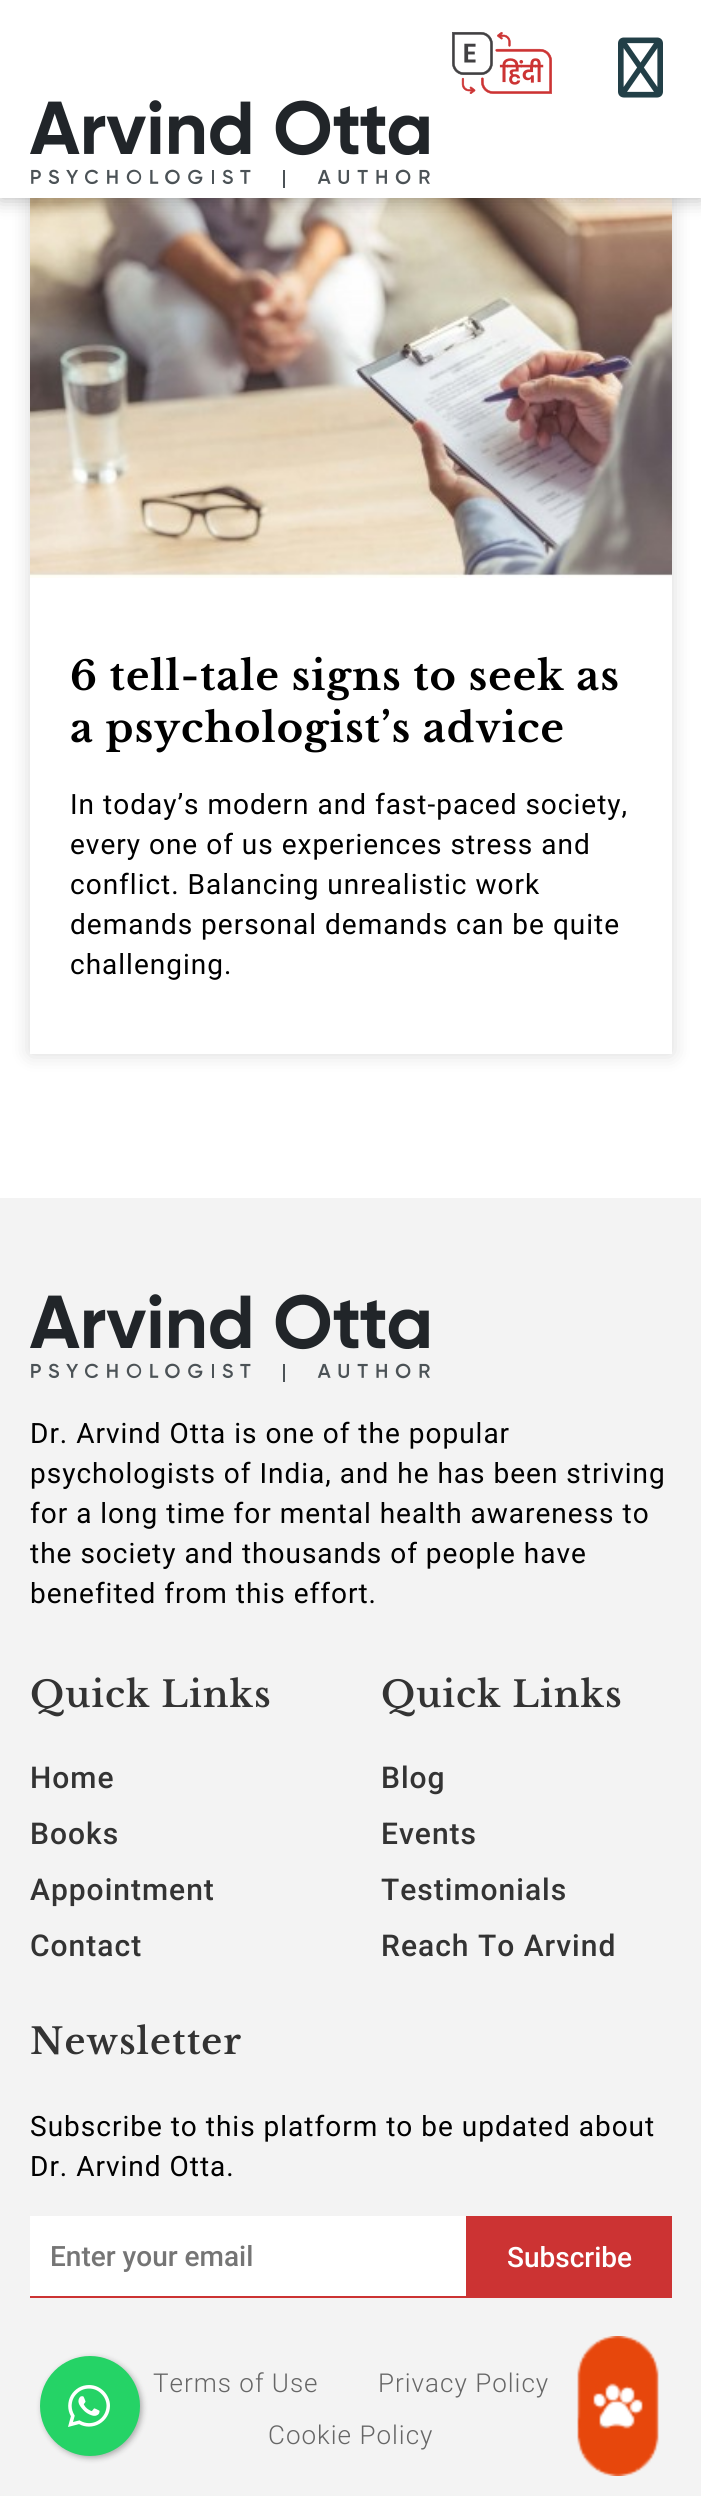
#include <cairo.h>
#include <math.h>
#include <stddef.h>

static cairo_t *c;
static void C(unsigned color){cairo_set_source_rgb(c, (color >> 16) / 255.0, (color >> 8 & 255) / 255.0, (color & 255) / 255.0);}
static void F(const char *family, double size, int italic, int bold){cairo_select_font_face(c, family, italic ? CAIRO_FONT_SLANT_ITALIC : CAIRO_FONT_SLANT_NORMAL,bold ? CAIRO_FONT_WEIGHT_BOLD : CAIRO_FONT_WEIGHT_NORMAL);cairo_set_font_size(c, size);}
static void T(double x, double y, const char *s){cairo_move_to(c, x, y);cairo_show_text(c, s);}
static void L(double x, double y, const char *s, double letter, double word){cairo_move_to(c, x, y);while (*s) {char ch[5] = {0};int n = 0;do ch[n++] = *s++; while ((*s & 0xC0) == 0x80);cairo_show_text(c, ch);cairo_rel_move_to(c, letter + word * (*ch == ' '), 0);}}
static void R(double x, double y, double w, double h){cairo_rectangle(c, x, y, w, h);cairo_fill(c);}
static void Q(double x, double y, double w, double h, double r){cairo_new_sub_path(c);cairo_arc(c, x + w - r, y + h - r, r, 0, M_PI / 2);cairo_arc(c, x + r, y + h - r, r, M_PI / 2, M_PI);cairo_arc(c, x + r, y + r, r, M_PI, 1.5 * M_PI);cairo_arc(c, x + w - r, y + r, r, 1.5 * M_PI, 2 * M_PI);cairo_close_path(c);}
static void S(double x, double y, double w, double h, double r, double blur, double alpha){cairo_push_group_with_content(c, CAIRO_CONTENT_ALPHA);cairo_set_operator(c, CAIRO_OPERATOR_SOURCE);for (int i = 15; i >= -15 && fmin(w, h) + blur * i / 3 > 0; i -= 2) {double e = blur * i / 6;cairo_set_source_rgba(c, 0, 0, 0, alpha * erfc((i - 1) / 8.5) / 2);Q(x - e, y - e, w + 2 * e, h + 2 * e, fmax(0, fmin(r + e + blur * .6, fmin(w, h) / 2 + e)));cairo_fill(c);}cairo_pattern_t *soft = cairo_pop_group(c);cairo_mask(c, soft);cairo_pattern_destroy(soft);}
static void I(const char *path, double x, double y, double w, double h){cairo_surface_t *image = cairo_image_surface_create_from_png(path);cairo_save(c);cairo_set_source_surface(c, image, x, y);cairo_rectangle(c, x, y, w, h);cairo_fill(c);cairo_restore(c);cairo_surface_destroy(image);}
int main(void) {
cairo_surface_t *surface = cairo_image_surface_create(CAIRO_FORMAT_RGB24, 701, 2496);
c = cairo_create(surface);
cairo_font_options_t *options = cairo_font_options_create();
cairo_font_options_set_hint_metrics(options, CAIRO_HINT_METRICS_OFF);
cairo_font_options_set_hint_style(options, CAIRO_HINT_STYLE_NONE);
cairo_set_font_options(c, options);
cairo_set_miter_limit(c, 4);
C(0xffffff);
cairo_paint(c);
cairo_save(c);
cairo_set_fill_rule(c,CAIRO_FILL_RULE_EVEN_ODD);
cairo_new_path(c);
cairo_move_to(c,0,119);
cairo_line_to(c,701,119);
cairo_line_to(c,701,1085);
cairo_line_to(c,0,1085);
cairo_close_path(c);
cairo_move_to(c,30,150);
cairo_line_to(c,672,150);
cairo_line_to(c,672,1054);
cairo_line_to(c,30,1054);
cairo_close_path(c);
cairo_clip(c);
C(0x000000);
S(30,150,642,904,0,10,.15);
cairo_restore(c);
I("4.png",30,198,642,380);
C(0x000000);
S(0,0,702,198,0,10,.3);
C(0xffffff);
R(0,0,701,198);
I("1.png",452,32,100,62);
I("2.png",618,37,45,61);
I("3.png",30,100,400,88);
F("Libre Baskerville",40,0,1);
C(0x000000);
L(70,690,"6 tell-tale signs to seek as",1,0);
L(70,742,"a psychologist’s advice",1,0);
F("Roboto",28,0,0);
L(70,814,"In today’s modern and fast-paced society,",1,0);
L(70,854,"every one of us experiences stress and",1,0);
L(70,894,"conflict. Balancing unrealistic work",1,0);
L(70,934,"demands personal demands can be quite",1,0);
L(70,974,"challenging.",1,0);
C(0xf3f3f3);
R(0,1198,701,1298);
I("5.png",30,1294,400,88);
C(0x000000);
L(30,1443,"Dr. Arvind Otta is one of the popular",1,0);
L(30,1483,"psychologists of India, and he has been striving",1,0);
L(30,1523,"for a long time for mental health awareness to",1,0);
L(30,1563,"the society and thousands of people have",1,0);
L(30,1603,"benefited from this effort.",1,0);
F("Libre Baskerville SemiBold",36,0,0);
C(0x333333);
L(30,1707,"Quick Links",1,0);
F("Roboto Medium",30,0,0);
L(30,1788,"Home",1,0);
L(30,1844,"Books",1,0);
L(30,1900,"Appointment",1,0);
L(30,1956,"Contact",1,0);
F("Libre Baskerville SemiBold",36,0,0);
L(381,1707,"Quick Links",1,0);
F("Roboto Medium",30,0,0);
L(381,1788,"Blog",1,0);
L(381,1844,"Events",1,0);
L(381,1900,"Testimonials",1,0);
L(381,1956,"Reach To Arvind",1,0);
F("Libre Baskerville SemiBold",36,0,0);
L(30,2054,"Newsletter",1,0);
F("Roboto",28,0,0);
C(0x000000);
L(30,2136,"Subscribe to this platform to be updated about",1,0);
L(30,2176,"Dr. Arvind Otta.",1,0);
C(0xffffff);
R(30,2216,436,80);
C(0xcc3333);
R(30,2296,436,2);
F("Roboto Medium",28,0,0);
C(0x757575);
T(50,2266,"Enter your email");
C(0xcc3333);
R(466,2216,206,82);
C(0xffffff);
T(507,2267,"Subscribe");
F("Roboto Light",26,0,0);
C(0x666666);
L(153,2392,"Terms of Use",1,0);
L(378,2392,"Privacy Policy",1,0);
L(268,2444,"Cookie Policy",1,0);
C(0x000000);
S(42,2358,100,100,50,3,.3);
C(0x25d366);
cairo_arc(c,90,2406,50,0,2 * M_PI);
cairo_fill(c);
I("6.png",68,2385,42,42);
I("7.png",577,2336,82,140);
cairo_surface_write_to_png(surface, "o.png");
cairo_font_options_destroy(options);
cairo_destroy(c);
cairo_surface_destroy(surface);
return 0;
}
